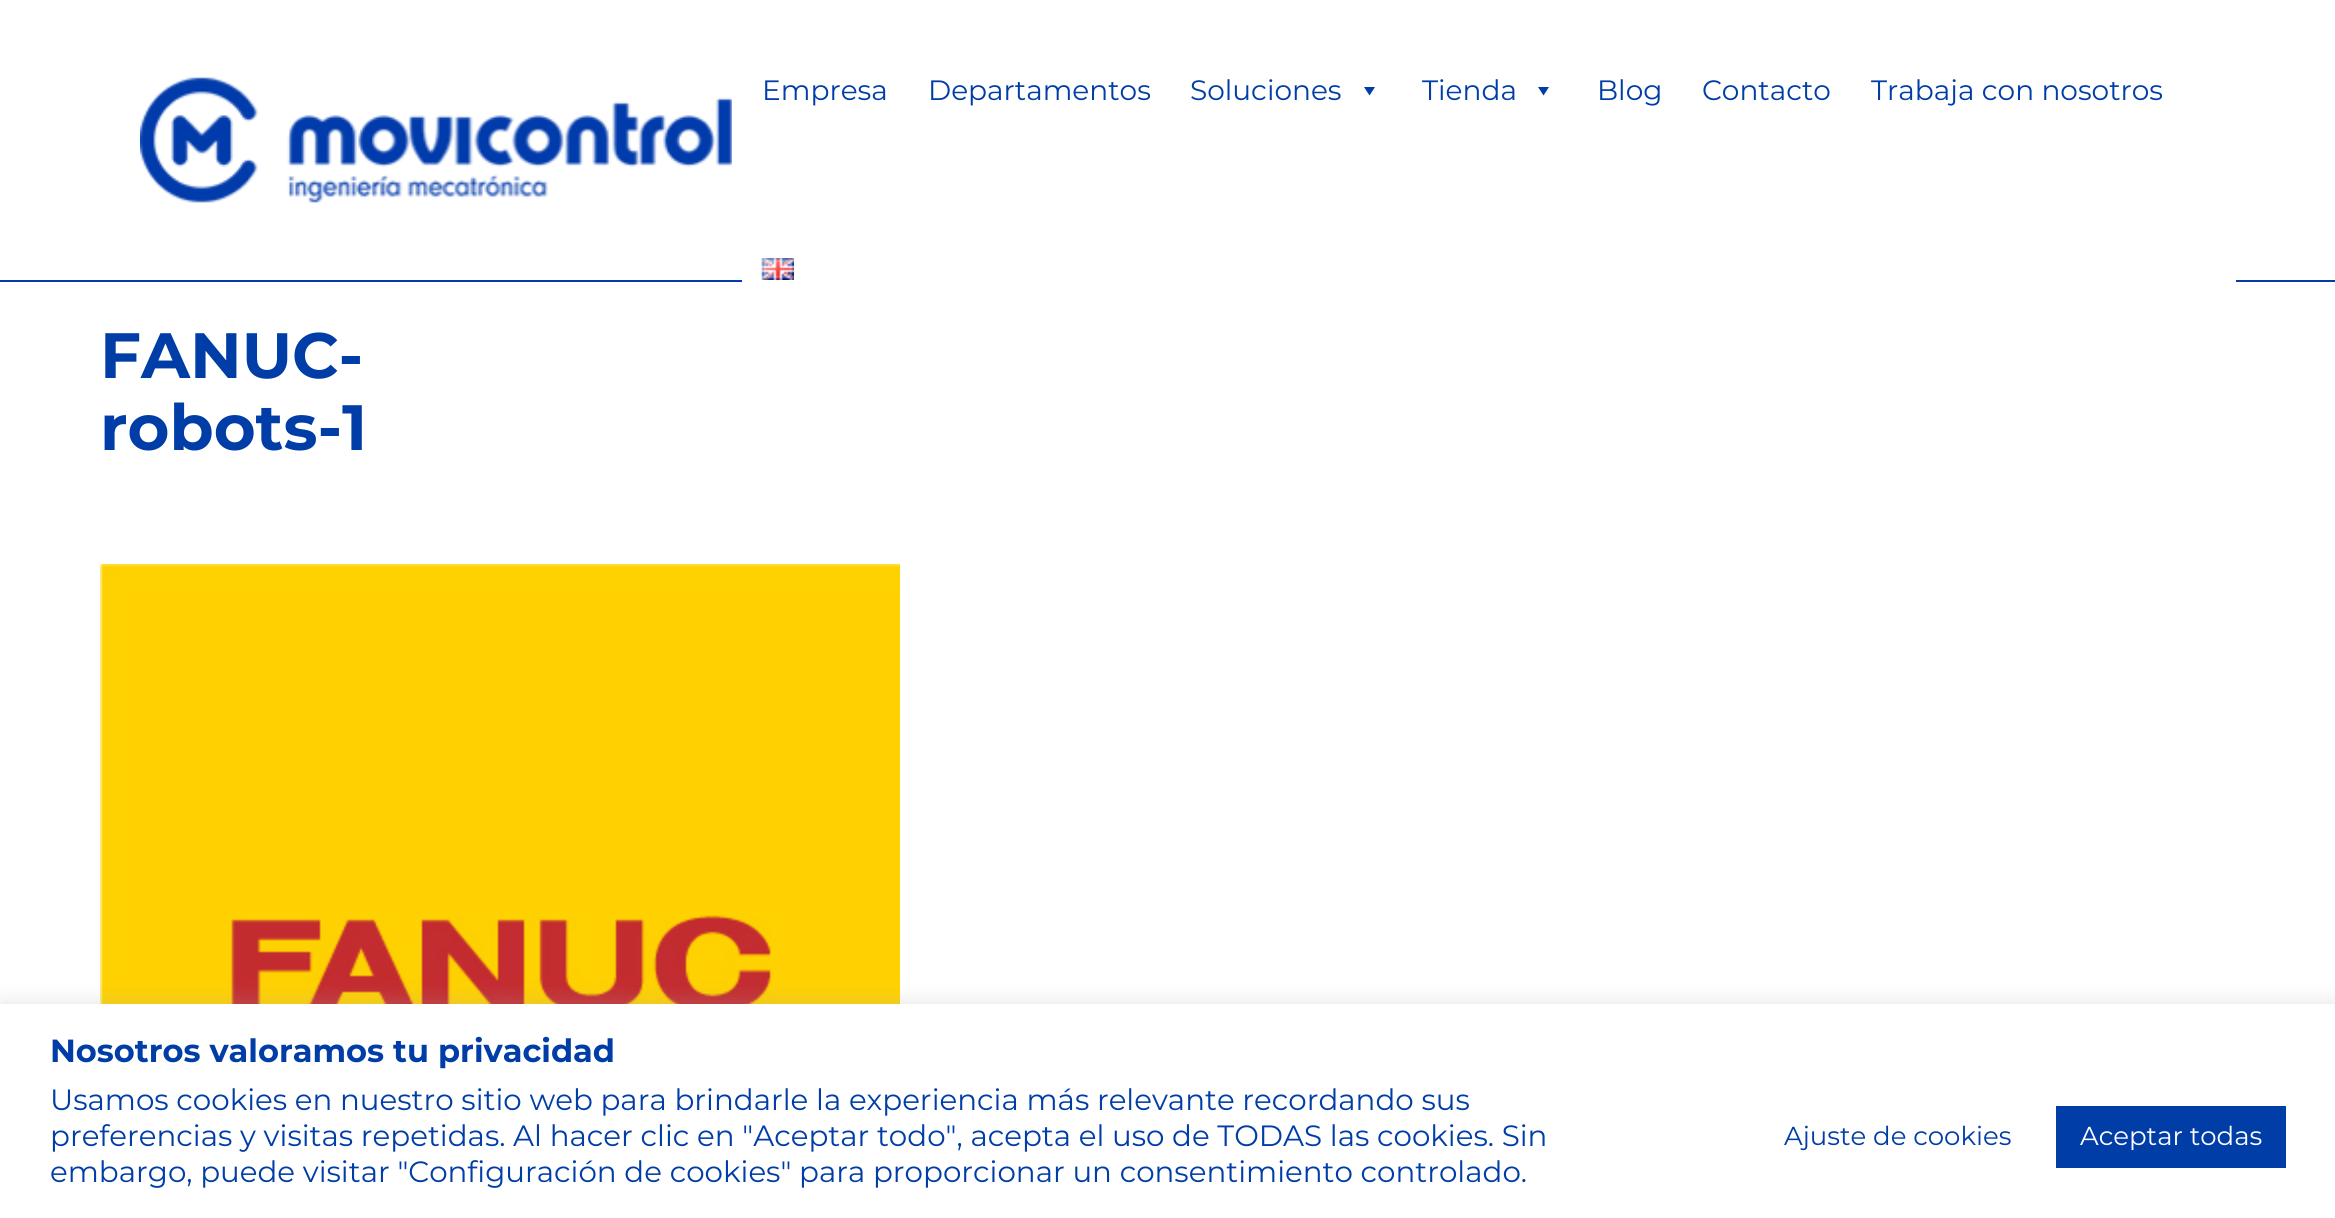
#include <cairo.h>
#include <math.h>
#include <stddef.h>

static cairo_t *c;
static void C(unsigned color){cairo_set_source_rgb(c, (color >> 16) / 255.0, (color >> 8 & 255) / 255.0, (color & 255) / 255.0);}
static void F(const char *family, double size, int italic, int bold){cairo_select_font_face(c, family, italic ? CAIRO_FONT_SLANT_ITALIC : CAIRO_FONT_SLANT_NORMAL,bold ? CAIRO_FONT_WEIGHT_BOLD : CAIRO_FONT_WEIGHT_NORMAL);cairo_set_font_size(c, size);}
static void T(double x, double y, const char *s){cairo_move_to(c, x, y);cairo_show_text(c, s);}
static void R(double x, double y, double w, double h){cairo_rectangle(c, x, y, w, h);cairo_fill(c);}
static void Q(double x, double y, double w, double h, double r){cairo_new_sub_path(c);cairo_arc(c, x + w - r, y + h - r, r, 0, M_PI / 2);cairo_arc(c, x + r, y + h - r, r, M_PI / 2, M_PI);cairo_arc(c, x + r, y + r, r, M_PI, 1.5 * M_PI);cairo_arc(c, x + w - r, y + r, r, 1.5 * M_PI, 2 * M_PI);cairo_close_path(c);}
static void S(double x, double y, double w, double h, double r, double blur, double alpha){cairo_push_group_with_content(c, CAIRO_CONTENT_ALPHA);cairo_set_operator(c, CAIRO_OPERATOR_SOURCE);for (int i = 15; i >= -15 && fmin(w, h) + blur * i / 3 > 0; i -= 2) {double e = blur * i / 6;cairo_set_source_rgba(c, 0, 0, 0, alpha * erfc((i - 1) / 8.5) / 2);Q(x - e, y - e, w + 2 * e, h + 2 * e, fmax(0, fmin(r + e + blur * .6, fmin(w, h) / 2 + e)));cairo_fill(c);}cairo_pattern_t *soft = cairo_pop_group(c);cairo_mask(c, soft);cairo_pattern_destroy(soft);}
static void I(const char *path, double x, double y, double w, double h){cairo_surface_t *image = cairo_image_surface_create_from_png(path);cairo_save(c);cairo_set_source_surface(c, image, x, y);cairo_rectangle(c, x, y, w, h);cairo_fill(c);cairo_restore(c);cairo_surface_destroy(image);}
int main(void) {
cairo_surface_t *surface = cairo_image_surface_create(CAIRO_FORMAT_RGB24, 2335, 1218);
c = cairo_create(surface);
cairo_font_options_t *options = cairo_font_options_create();
cairo_font_options_set_hint_metrics(options, CAIRO_HINT_METRICS_OFF);
cairo_font_options_set_hint_style(options, CAIRO_HINT_STYLE_NONE);
cairo_set_font_options(c, options);
cairo_set_miter_limit(c, 4);
C(0xffffff);
cairo_paint(c);
C(0x003da7);
R(0,280,2335,2);
I("1.png",140,77,592,126);
C(0xffffff);
R(742,280,1494,2);
F("Montserrat",28,0,0);
C(0x003da7);
T(762,100,"Empresa");
T(928,100,"Departamentos");
T(1190,100,"Soluciones");
cairo_new_path(c);
cairo_move_to(c,1375,87);
cairo_line_to(c,1369.5,95.5);
cairo_line_to(c,1364,87);
cairo_close_path(c);
cairo_fill(c);
T(1422,100,"Tienda");
cairo_new_path(c);
cairo_move_to(c,1549,87);
cairo_line_to(c,1543.5,95.5);
cairo_line_to(c,1538,87);
cairo_close_path(c);
cairo_fill(c);
T(1597,100,"Blog");
T(1702,100,"Contacto");
T(1871,100,"Trabaja con nosotros");
I("2.png",761,258,33,22);
F("Montserrat",64,0,1);
T(100,378,"FANUC-");
T(100,450,"robots-1");
I("3.png",100,564,800,440);
C(0xacabab);
S(0,1002,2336,214,0,10,.3);
C(0xffffff);
R(0,1004,2335,214);
F("Montserrat",32,0,1);
C(0x003da7);
T(50,1062,"Nosotros valoramos tu privacidad");
F("Montserrat",29.33,0,0);
T(50,1110,"Usamos cookies en nuestro sitio web para brindarle la experiencia más relevante recordando sus");
T(50,1146,"preferencias y visitas repetidas. Al hacer clic en \"Aceptar todo\", acepta el uso de TODAS las cookies. Sin");
T(50,1182,"embargo, puede visitar \"Configuración de cookies\" para proporcionar un consentimiento controlado.");
F("Montserrat",26,0,0);
T(1784,1145,"Ajuste de cookies");
R(2056,1106,230,62);
C(0xffffff);
T(2080,1145,"Aceptar todas");
cairo_surface_write_to_png(surface, "o.png");
cairo_font_options_destroy(options);
cairo_destroy(c);
cairo_surface_destroy(surface);
return 0;
}
